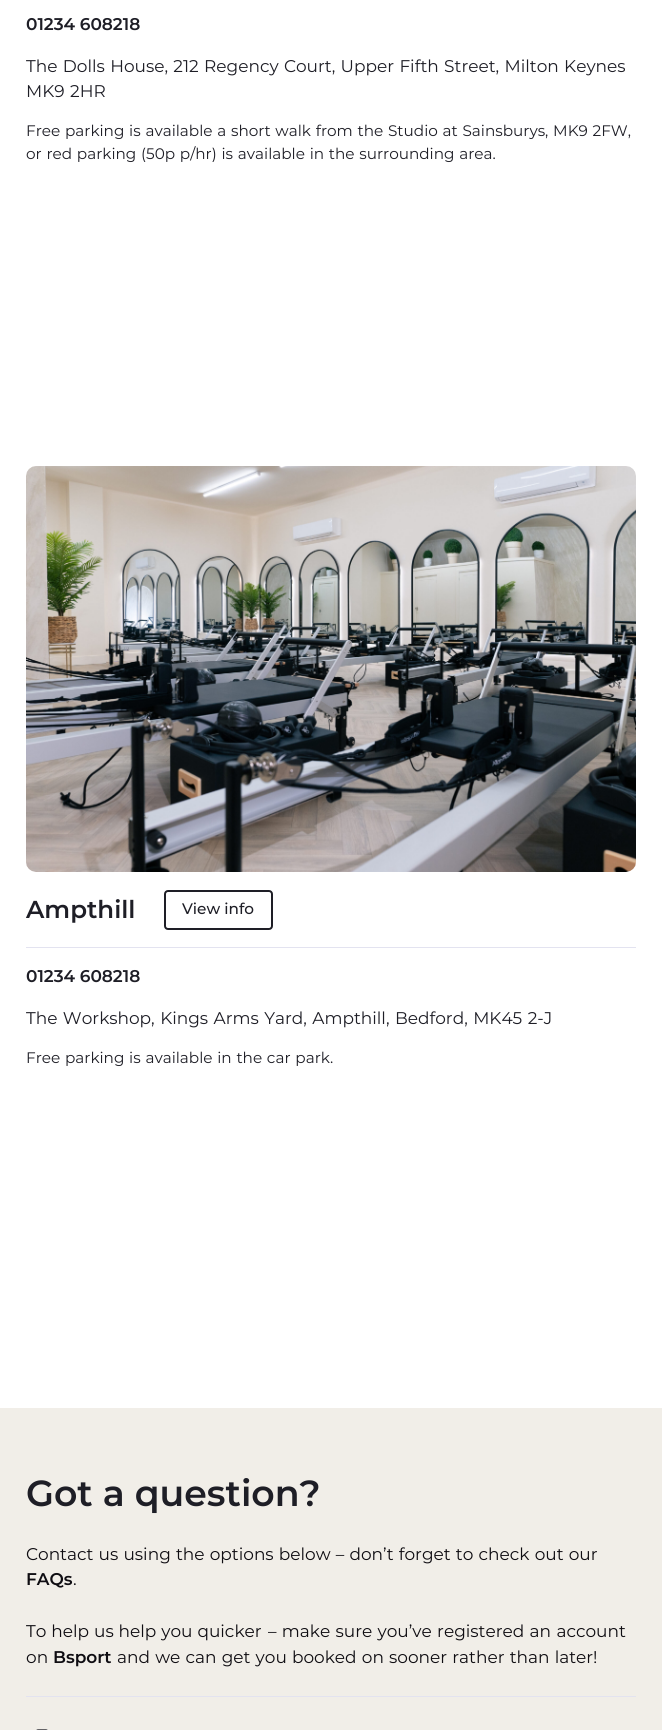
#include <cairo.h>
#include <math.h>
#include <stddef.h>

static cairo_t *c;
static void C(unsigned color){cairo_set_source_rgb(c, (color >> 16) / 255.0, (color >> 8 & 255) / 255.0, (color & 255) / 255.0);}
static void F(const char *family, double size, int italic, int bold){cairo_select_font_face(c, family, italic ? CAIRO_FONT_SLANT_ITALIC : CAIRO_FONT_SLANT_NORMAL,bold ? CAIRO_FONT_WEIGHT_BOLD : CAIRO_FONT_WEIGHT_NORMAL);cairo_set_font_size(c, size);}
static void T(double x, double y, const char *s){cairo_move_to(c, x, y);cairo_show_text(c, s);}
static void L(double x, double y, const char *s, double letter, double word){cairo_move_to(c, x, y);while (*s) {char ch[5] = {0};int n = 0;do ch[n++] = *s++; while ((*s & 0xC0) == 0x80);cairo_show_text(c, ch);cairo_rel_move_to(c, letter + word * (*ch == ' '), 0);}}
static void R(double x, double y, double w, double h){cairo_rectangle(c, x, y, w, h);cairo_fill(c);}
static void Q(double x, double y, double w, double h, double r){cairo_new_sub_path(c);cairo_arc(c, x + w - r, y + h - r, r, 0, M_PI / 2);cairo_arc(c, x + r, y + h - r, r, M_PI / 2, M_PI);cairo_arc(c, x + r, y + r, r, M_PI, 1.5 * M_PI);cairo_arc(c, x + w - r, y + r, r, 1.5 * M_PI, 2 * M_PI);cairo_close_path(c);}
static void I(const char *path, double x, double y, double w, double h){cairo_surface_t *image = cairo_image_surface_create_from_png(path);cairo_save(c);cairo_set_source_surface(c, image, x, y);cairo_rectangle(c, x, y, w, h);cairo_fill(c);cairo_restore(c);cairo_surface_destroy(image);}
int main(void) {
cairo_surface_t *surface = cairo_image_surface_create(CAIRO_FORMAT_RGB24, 662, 1730);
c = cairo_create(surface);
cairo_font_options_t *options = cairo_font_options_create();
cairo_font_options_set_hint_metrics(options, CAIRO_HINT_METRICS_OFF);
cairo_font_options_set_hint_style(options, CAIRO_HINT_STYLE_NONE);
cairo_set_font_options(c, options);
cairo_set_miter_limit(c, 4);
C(0xffffff);
cairo_paint(c);
F("Montserrat SemiBold",16.95,0,0);
C(0x1e1e26);
T(26,30,"01234 608218");
F("Montserrat",16.95,0,0);
L(26,72,"The Dolls House, 212 Regency Court, Upper Fifth Street, Milton Keynes",0,.9);
L(26,97,"MK9 2HR",0,1);
F("Montserrat",15.25,0,0);
L(26,136,"Free parking is available a short walk from the Studio at Sainsburys, MK9 2FW,",0,.75);
L(26,159,"or red parking (50p p/hr) is available in the surrounding area.",0,.75);
I("1.png",26,466,610,406);
F("Montserrat SemiBold",24.5,0,0);
T(26,918,"Ampthill");
Q(165,891,107,38,3);
cairo_stroke(c);
F("Montserrat Medium",15.25,0,0);
T(182,914,"View info");
C(0xe3e3f0);
R(26,947,610,1);
F("Montserrat SemiBold",16.95,0,0);
C(0x1e1e26);
T(26,982,"01234 608218");
F("Montserrat",16.95,0,0);
L(26,1024,"The Workshop, Kings Arms Yard, Ampthill, Bedford, MK45 2-J",0,1);
F("Montserrat",15.25,0,0);
L(26,1063,"Free parking is available in the car park.",0,.75);
C(0xf1eee8);
R(0,1408,662,322);
F("Montserrat SemiBold",36.25,0,0);
C(0x1e1e26);
T(26,1506,"Got a question?");
F("Montserrat",16.95,0,0);
C(0x0f0d12);
L(26,1560,"Contact us using the options below – don’t forget to check out our",0,.75);
F("Montserrat SemiBold",16.95,0,0);
T(26,1585,"FAQs");
F("Montserrat",16.95,0,0);
T(73,1585,".");
L(26,1637,"To help us help you quicker",0,.5);
L(268,1637,"– make sure you’ve registered an account",0,.9);
T(26,1663,"on");
F("Montserrat SemiBold",16.95,0,0);
T(53,1663,"Bsport");
F("Montserrat",16.95,0,0);
L(117,1663,"and we can get you booked on sooner rather than later!",0,.75);
C(0xe3e3f0);
R(26,1696,610,1);
I("2.png",36,1729,12,1);
cairo_surface_write_to_png(surface, "o.png");
cairo_font_options_destroy(options);
cairo_destroy(c);
cairo_surface_destroy(surface);
return 0;
}
